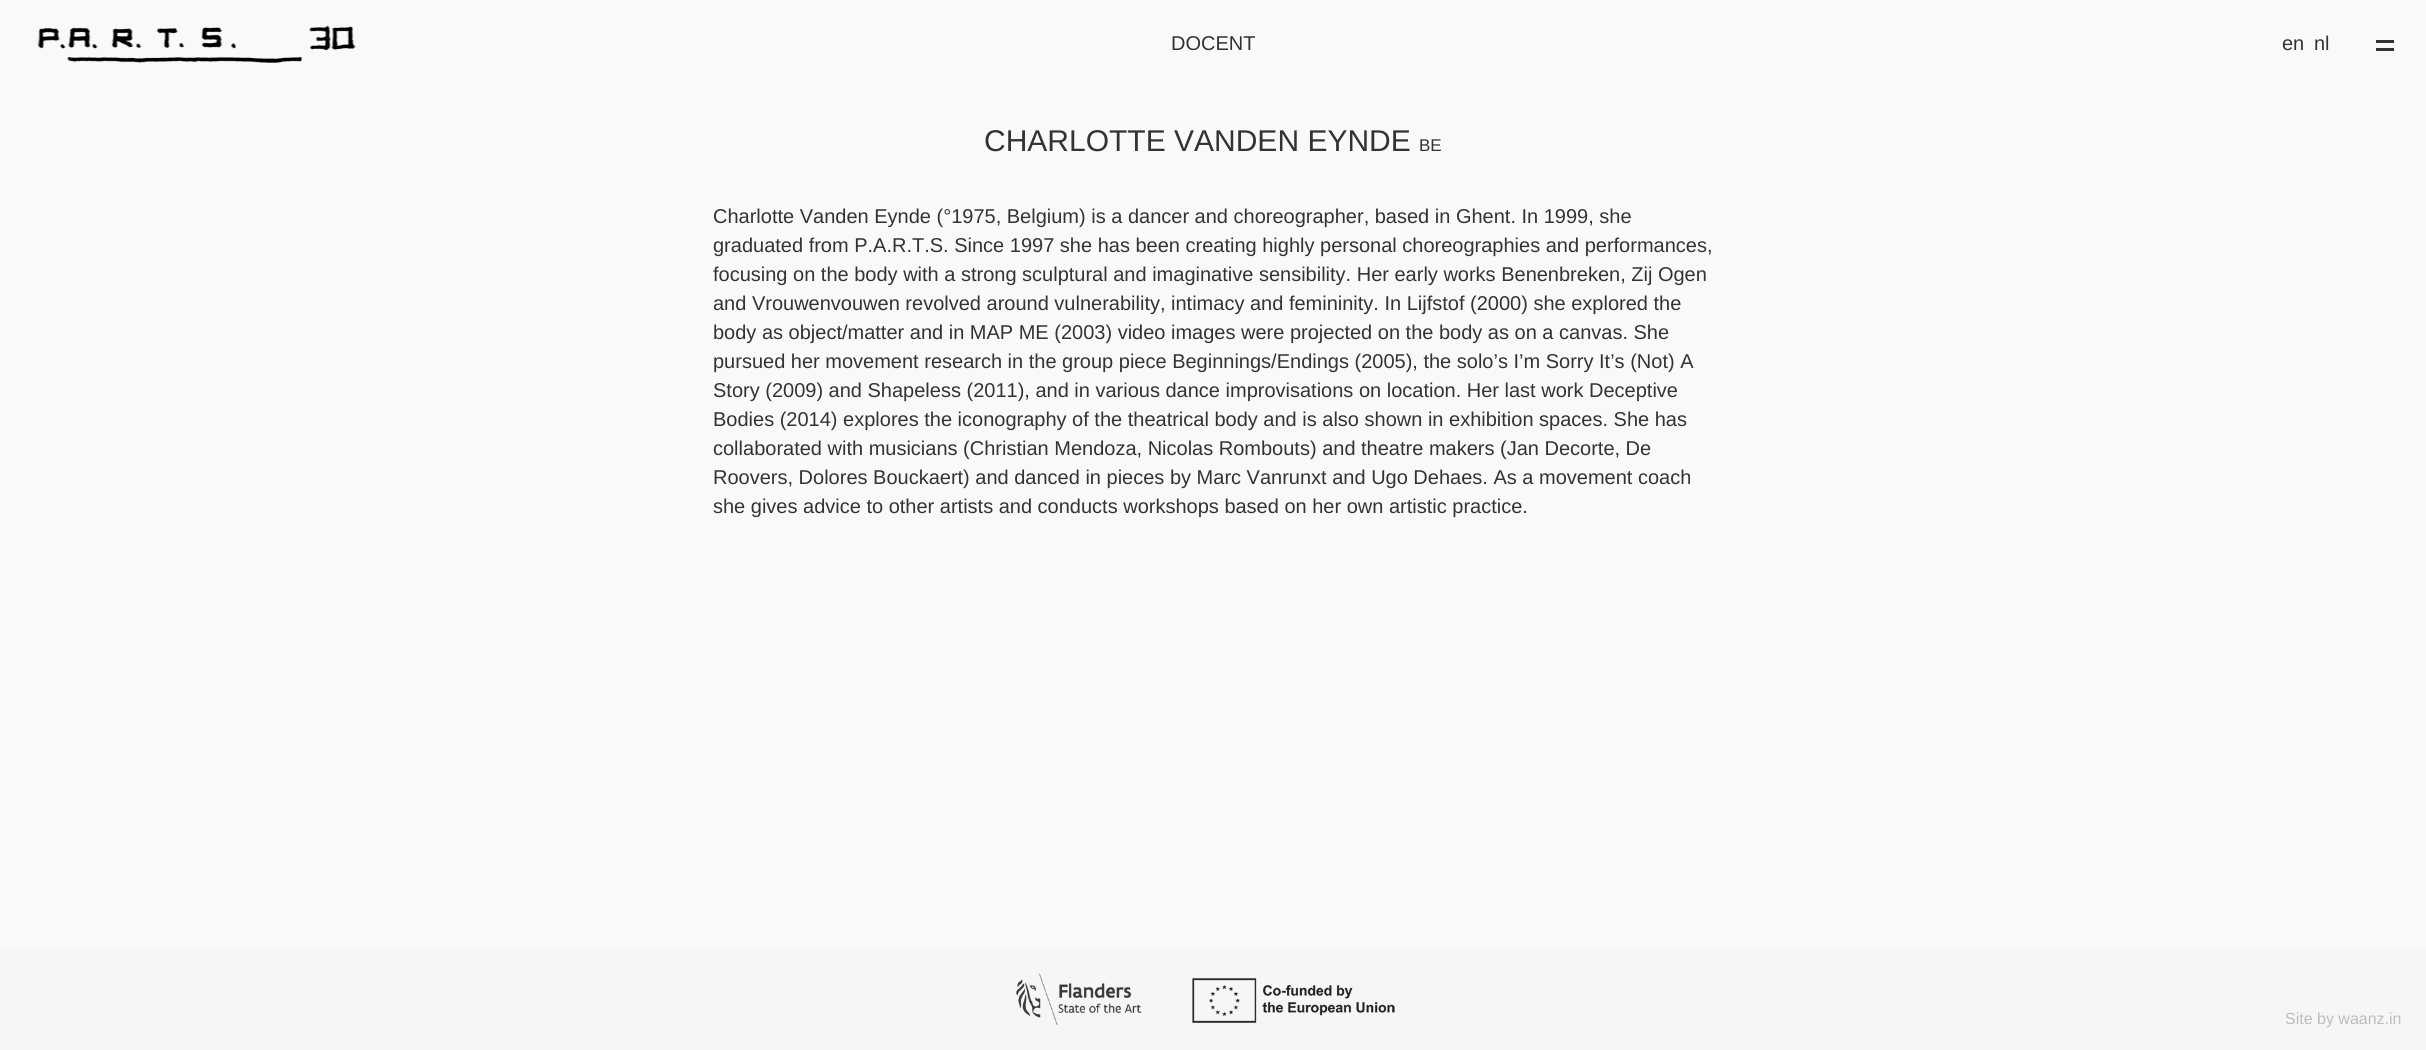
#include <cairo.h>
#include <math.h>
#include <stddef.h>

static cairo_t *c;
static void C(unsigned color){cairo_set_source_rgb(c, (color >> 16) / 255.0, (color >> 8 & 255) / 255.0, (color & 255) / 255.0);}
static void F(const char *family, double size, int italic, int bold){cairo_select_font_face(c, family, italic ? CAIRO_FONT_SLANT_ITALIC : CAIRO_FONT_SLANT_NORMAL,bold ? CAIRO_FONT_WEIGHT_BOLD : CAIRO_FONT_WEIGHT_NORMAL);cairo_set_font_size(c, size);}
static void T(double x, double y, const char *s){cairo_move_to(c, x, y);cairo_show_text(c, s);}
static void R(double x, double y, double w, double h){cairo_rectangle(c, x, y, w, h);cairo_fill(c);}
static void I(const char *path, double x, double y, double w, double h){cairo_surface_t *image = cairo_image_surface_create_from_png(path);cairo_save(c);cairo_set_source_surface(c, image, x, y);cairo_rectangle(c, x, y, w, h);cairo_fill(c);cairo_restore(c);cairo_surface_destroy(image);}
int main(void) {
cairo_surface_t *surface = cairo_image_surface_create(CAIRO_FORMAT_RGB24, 2426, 1050);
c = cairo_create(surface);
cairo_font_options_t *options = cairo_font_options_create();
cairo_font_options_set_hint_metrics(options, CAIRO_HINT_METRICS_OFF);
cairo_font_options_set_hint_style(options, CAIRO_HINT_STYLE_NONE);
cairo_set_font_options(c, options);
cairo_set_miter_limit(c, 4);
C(0xf9f9f9);
cairo_paint(c);
I("1.png",37,25,319,38);
F("Liberation Sans",20,0,0);
C(0x333333);
T(1171,50,"DOCENT");
T(2282,50,"en");
T(2314,50,"nl");
R(2376,40,18,3);
R(2376,48,18,3);
F("Liberation Sans",30,0,0);
T(984,151,"CHARLOTTE VANDEN EYNDE");
F("Liberation Sans",17,0,0);
T(1419,151,"BE");
F("Liberation Sans",20,0,0);
T(713,223,"Charlotte Vanden Eynde (°1975, Belgium) is a dancer and choreographer, based in Ghent. In 1999, she");
T(713,252,"graduated from P.A.R.T.S. Since 1997 she has been creating highly personal choreographies and performances,");
T(713,281,"focusing on the body with a strong sculptural and imaginative sensibility. Her early works Benenbreken, Zij Ogen");
T(713,310,"and Vrouwenvouwen revolved around vulnerability, intimacy and femininity. In Lijfstof (2000) she explored the");
T(713,339,"body as object/matter and in MAP ME (2003) video images were projected on the body as on a canvas. She");
T(713,368,"pursued her movement research in the group piece Beginnings/Endings (2005), the solo’s I’m Sorry It’s (Not) A");
T(713,397,"Story (2009) and Shapeless (2011), and in various dance improvisations on location. Her last work Deceptive");
T(713,426,"Bodies (2014) explores the iconography of the theatrical body and is also shown in exhibition spaces. She has");
T(713,455,"collaborated with musicians (Christian Mendoza, Nicolas Rombouts) and theatre makers (Jan Decorte, De");
T(713,484,"Roovers, Dolores Bouckaert) and danced in pieces by Marc Vanrunxt and Ugo Dehaes. As a movement coach");
T(713,513,"she gives advice to other artists and conducts workshops based on her own artistic practice.");
C(0xf6f6f6);
R(0,949,2426,101);
I("2.png",1016,973,126,52);
I("3.png",1192,978,203,45);
F("Liberation Sans",16,0,0);
C(0xbcbcbc);
T(2285,1024,"Site by waanz.in");
cairo_surface_write_to_png(surface, "o.png");
cairo_font_options_destroy(options);
cairo_destroy(c);
cairo_surface_destroy(surface);
return 0;
}
